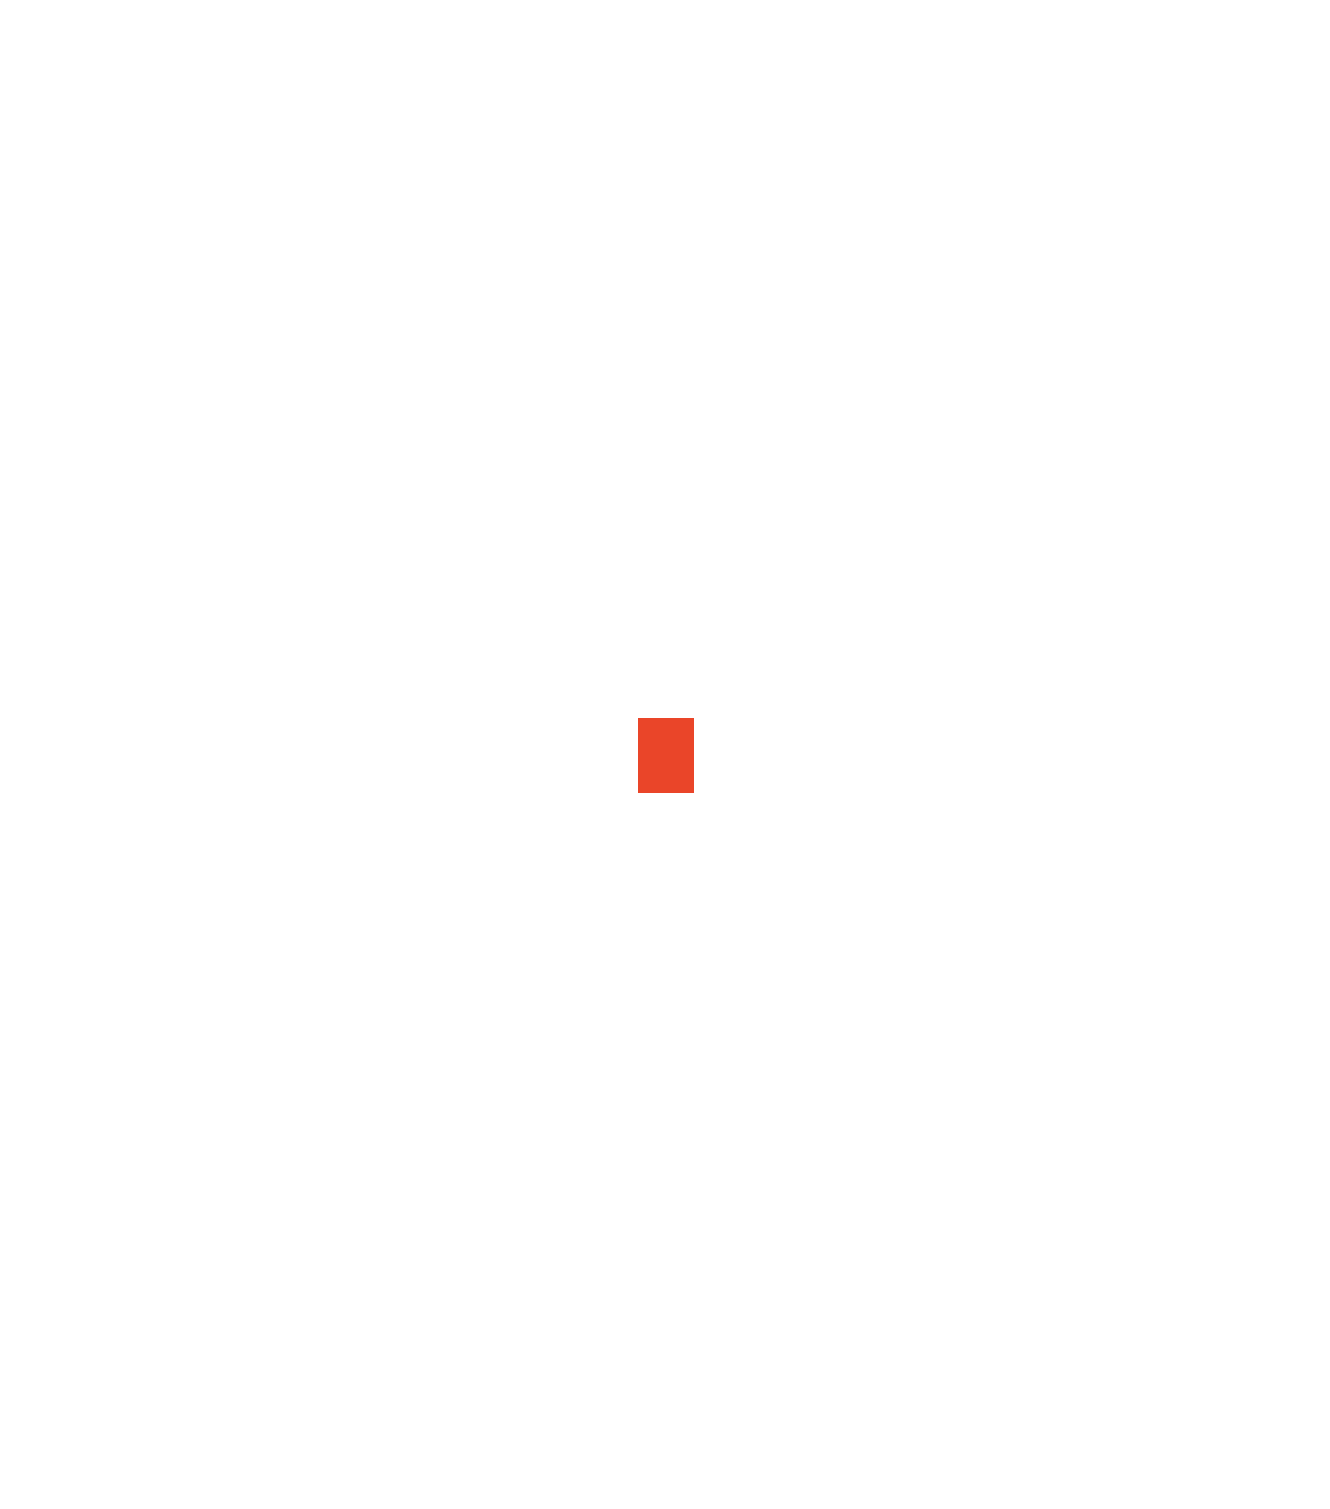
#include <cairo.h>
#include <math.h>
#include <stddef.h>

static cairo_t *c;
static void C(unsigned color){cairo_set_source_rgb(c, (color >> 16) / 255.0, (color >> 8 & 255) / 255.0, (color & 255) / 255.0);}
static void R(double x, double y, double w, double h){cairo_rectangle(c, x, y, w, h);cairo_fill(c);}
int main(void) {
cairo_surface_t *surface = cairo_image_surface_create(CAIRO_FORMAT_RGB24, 1330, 1509);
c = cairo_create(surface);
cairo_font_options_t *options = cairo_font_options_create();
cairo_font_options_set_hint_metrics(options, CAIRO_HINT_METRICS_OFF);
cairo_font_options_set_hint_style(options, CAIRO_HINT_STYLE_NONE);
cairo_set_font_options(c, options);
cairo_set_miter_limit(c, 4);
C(0xffffff);
cairo_paint(c);
C(0xea4529);
R(638,718,56,75);
cairo_surface_write_to_png(surface, "o.png");
cairo_font_options_destroy(options);
cairo_destroy(c);
cairo_surface_destroy(surface);
return 0;
}
